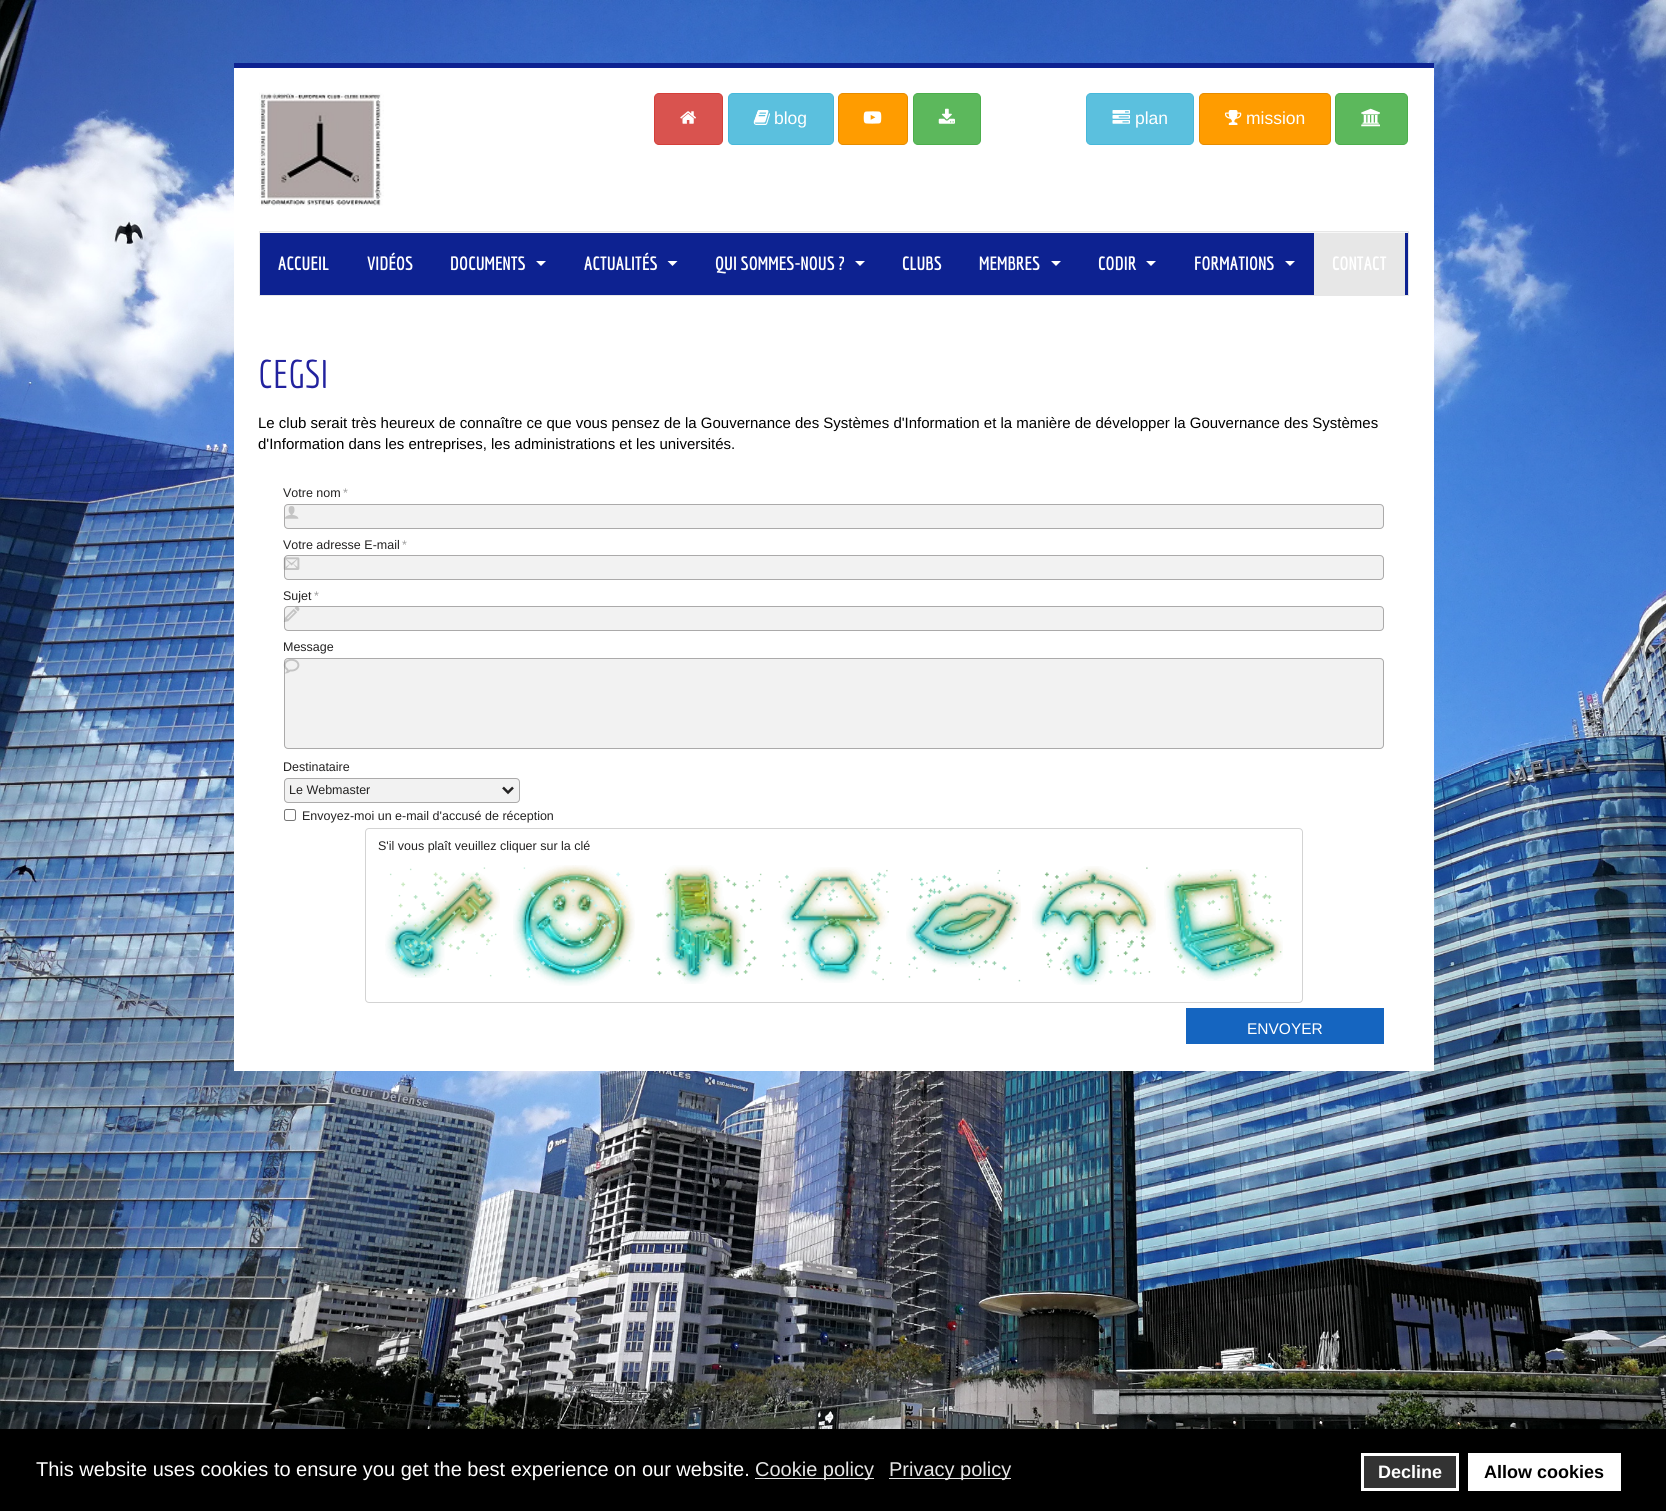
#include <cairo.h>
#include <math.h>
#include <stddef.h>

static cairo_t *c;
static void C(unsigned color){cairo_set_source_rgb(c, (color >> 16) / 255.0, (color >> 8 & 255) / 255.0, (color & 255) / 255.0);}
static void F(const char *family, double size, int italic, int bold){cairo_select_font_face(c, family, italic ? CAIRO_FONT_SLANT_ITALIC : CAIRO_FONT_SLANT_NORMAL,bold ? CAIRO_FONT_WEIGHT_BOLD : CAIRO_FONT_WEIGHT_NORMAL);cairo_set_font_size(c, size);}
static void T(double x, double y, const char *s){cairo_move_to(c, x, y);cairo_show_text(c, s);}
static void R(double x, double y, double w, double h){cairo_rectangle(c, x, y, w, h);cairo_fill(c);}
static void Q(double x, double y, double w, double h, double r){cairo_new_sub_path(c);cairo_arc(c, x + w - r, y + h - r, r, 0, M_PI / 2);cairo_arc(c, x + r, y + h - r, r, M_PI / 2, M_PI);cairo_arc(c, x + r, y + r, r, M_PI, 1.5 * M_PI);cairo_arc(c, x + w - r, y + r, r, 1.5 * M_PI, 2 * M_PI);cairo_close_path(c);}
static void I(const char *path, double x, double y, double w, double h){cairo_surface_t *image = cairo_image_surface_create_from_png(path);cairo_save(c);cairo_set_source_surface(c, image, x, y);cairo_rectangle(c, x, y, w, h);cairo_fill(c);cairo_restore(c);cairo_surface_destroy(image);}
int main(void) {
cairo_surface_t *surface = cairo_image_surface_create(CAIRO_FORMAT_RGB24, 1666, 1511);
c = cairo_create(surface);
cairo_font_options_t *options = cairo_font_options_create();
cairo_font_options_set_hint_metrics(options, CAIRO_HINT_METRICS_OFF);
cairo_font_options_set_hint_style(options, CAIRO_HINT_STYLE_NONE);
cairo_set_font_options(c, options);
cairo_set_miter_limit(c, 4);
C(0xffffff);
cairo_paint(c);
I("1.png",0,0,1666,1429);
C(0xffffff);
R(234,68,1200,1003);
C(0x0d2291);
R(234,63,1200,5);
I("2.png",259,92,125,114);
C(0xd9534f);
Q(654.5,93.5,68,51,4.5);
cairo_fill_preserve(c);
C(0xd43f3a);
cairo_set_line_width(c,1);
cairo_stroke(c);
I("3.png",680,111,16,13);
C(0x5bc0de);
Q(728.5,93.5,105,51,4.5);
cairo_fill_preserve(c);
C(0x46b8da);
cairo_stroke(c);
I("4.png",753,110,17,15);
F("Liberation Sans",17.5,0,0);
C(0xffffff);
T(774,124,"blog");
C(0xff9c00);
Q(838.5,93.5,69,51,4.5);
cairo_fill_preserve(c);
C(0xe68c00);
cairo_stroke(c);
I("5.png",863,111,19,13);
C(0x5cb85c);
Q(913.5,93.5,67,51,4.5);
cairo_fill_preserve(c);
C(0x4cae4c);
cairo_stroke(c);
I("6.png",938,108,17,16);
C(0x5bc0de);
Q(1086.5,93.5,107,51,4.5);
cairo_fill_preserve(c);
C(0x46b8da);
cairo_stroke(c);
I("7.png",1112,110,18,14);
C(0xffffff);
T(1135,124,"plan");
C(0xff9c00);
Q(1199.5,93.5,131,51,4.5);
cairo_fill_preserve(c);
C(0xe68c00);
cairo_stroke(c);
I("8.png",1225,110,17,15);
C(0xffffff);
T(1246,124,"mission");
C(0x5cb85c);
Q(1335.5,93.5,72,51,4.5);
cairo_fill_preserve(c);
C(0x4cae4c);
cairo_stroke(c);
I("9.png",1361,108,19,19);
C(0xf8f8f8);
R(260,232,1148,1);
cairo_rectangle(c,259.5,231.5,1149,64);
C(0xe7e7e7);
cairo_stroke(c);
C(0x0d2291);
R(260,233,1148,62);
F("Economica",18.75,0,1);
C(0xffffff);
T(278,270,"ACCUEIL");
T(367,270,"VIDÉOS");
T(450,270,"DOCUMENTS");
cairo_new_path(c);
cairo_move_to(c,536,261);
cairo_line_to(c,546,261);
cairo_line_to(c,541,266);
cairo_close_path(c);
cairo_fill(c);
T(584,270,"ACTUALITÉS");
cairo_new_path(c);
cairo_move_to(c,667.5,261);
cairo_line_to(c,677.5,261);
cairo_line_to(c,672.5,266);
cairo_close_path(c);
cairo_fill(c);
T(715,270,"QUI SOMMES-NOUS ?");
cairo_new_path(c);
cairo_move_to(c,855,261);
cairo_line_to(c,865,261);
cairo_line_to(c,860,266);
cairo_close_path(c);
cairo_fill(c);
T(902,270,"CLUBS");
T(979,270,"MEMBRES");
cairo_new_path(c);
cairo_move_to(c,1051,261);
cairo_line_to(c,1061,261);
cairo_line_to(c,1056,266);
cairo_close_path(c);
cairo_fill(c);
T(1098,270,"CODIR");
cairo_new_path(c);
cairo_move_to(c,1146,261);
cairo_line_to(c,1156,261);
cairo_line_to(c,1151,266);
cairo_close_path(c);
cairo_fill(c);
T(1194,270,"FORMATIONS");
cairo_new_path(c);
cairo_move_to(c,1285,261);
cairo_line_to(c,1295,261);
cairo_line_to(c,1290,266);
cairo_close_path(c);
cairo_fill(c);
C(0xe7e7e7);
R(1314,233,91,62);
C(0xffffff);
T(1332,270,"CONTACT");
F("Economica",39,0,0);
C(0x22229e);
T(258,388,"CEGSI");
F("Liberation Sans",15,0,0);
C(0x000000);
T(258,428,"Le club serait très heureux de connaître ce que vous pensez de la Gouvernance des Systèmes d'Information et la manière de développer la Gouvernance des Systèmes");
T(258,449,"d'Information dans les entreprises, les administrations et les universités.");
F("Liberation Sans",12.5,0,0);
C(0x232222);
T(283,497,"Votre nom");
C(0x9e9e9e);
T(343,497,"*");
C(0xf2f2f2);
Q(284.5,504.5,1099,24,3.5);
cairo_fill_preserve(c);
C(0xabaaaa);
cairo_stroke(c);
I("10.png",285,506,14,13);
C(0x232222);
T(283,549,"Votre adresse E-mail");
C(0x9e9e9e);
T(402,549,"*");
C(0xf2f2f2);
Q(284.5,555.5,1099,24,3.5);
cairo_fill_preserve(c);
C(0xabaaaa);
cairo_stroke(c);
I("11.png",283,557,17,13);
C(0x232222);
T(283,600,"Sujet");
C(0x9e9e9e);
T(314,600,"*");
C(0xf2f2f2);
Q(284.5,606.5,1099,24,3.5);
cairo_fill_preserve(c);
C(0xabaaaa);
cairo_stroke(c);
I("12.png",283,606,17,16);
C(0x232222);
T(283,651,"Message");
C(0xf2f2f2);
Q(284.5,658.5,1099,90,3.5);
cairo_fill_preserve(c);
C(0xabaaaa);
cairo_stroke(c);
I("13.png",283,659,17,15);
C(0x232222);
T(283,771,"Destinataire");
C(0xf2f2f2);
Q(284.5,778.5,235,24,3.5);
cairo_fill_preserve(c);
C(0xabaaaa);
cairo_stroke(c);
cairo_new_path(c);
cairo_move_to(c,503,787.5);
cairo_line_to(c,508,792.5);
cairo_line_to(c,513,787.5);
C(0x232222);
cairo_set_line_width(c,2.5);
cairo_stroke(c);
T(289,794,"Le Webmaster");
Q(284.5,809.5,11,11,2);
C(0x767676);
cairo_set_line_width(c,1);
cairo_stroke(c);
C(0x232222);
T(302,820,"Envoyez-moi un e-mail d'accusé de réception");
Q(365.5,828.5,937,174,3.5);
C(0xd3d3d3);
cairo_stroke(c);
C(0x232222);
T(378,850,"S'il vous plaît veuillez cliquer sur la clé");
I("14.png",385,867,115,111);
I("15.png",513,865,122,121);
I("16.png",656,865,106,119);
I("17.png",778,867,114,116);
I("18.png",906,869,115,113);
I("19.png",1032,866,124,119);
I("20.png",1164,869,119,112);
C(0x1565c0);
R(1186,1008,198,36);
F("Liberation Sans",15.5,0,0);
C(0xffffff);
T(1247,1034,"ENVOYER");
C(0x000000);
R(0,1429,1666,82);
F("Liberation Sans",20,0,0);
C(0xffffff);
T(36,1476,"This website uses cookies to ensure you get the best experience on our website.");
C(0xe6e6e6);
R(755,1478,119,1);
T(755,1476,"Cookie policy");
R(889,1478,122,1);
T(889,1476,"Privacy policy");
C(0x333333);
cairo_rectangle(c,1362.5,1454.5,95,35);
cairo_fill_preserve(c);
C(0xffffff);
cairo_set_line_width(c,3);
cairo_stroke(c);
F("Liberation Sans",18,0,1);
T(1378,1478,"Decline");
R(1468,1453,153,38);
C(0x000000);
T(1484,1478,"Allow cookies");
cairo_surface_write_to_png(surface, "o.png");
cairo_font_options_destroy(options);
cairo_destroy(c);
cairo_surface_destroy(surface);
return 0;
}
